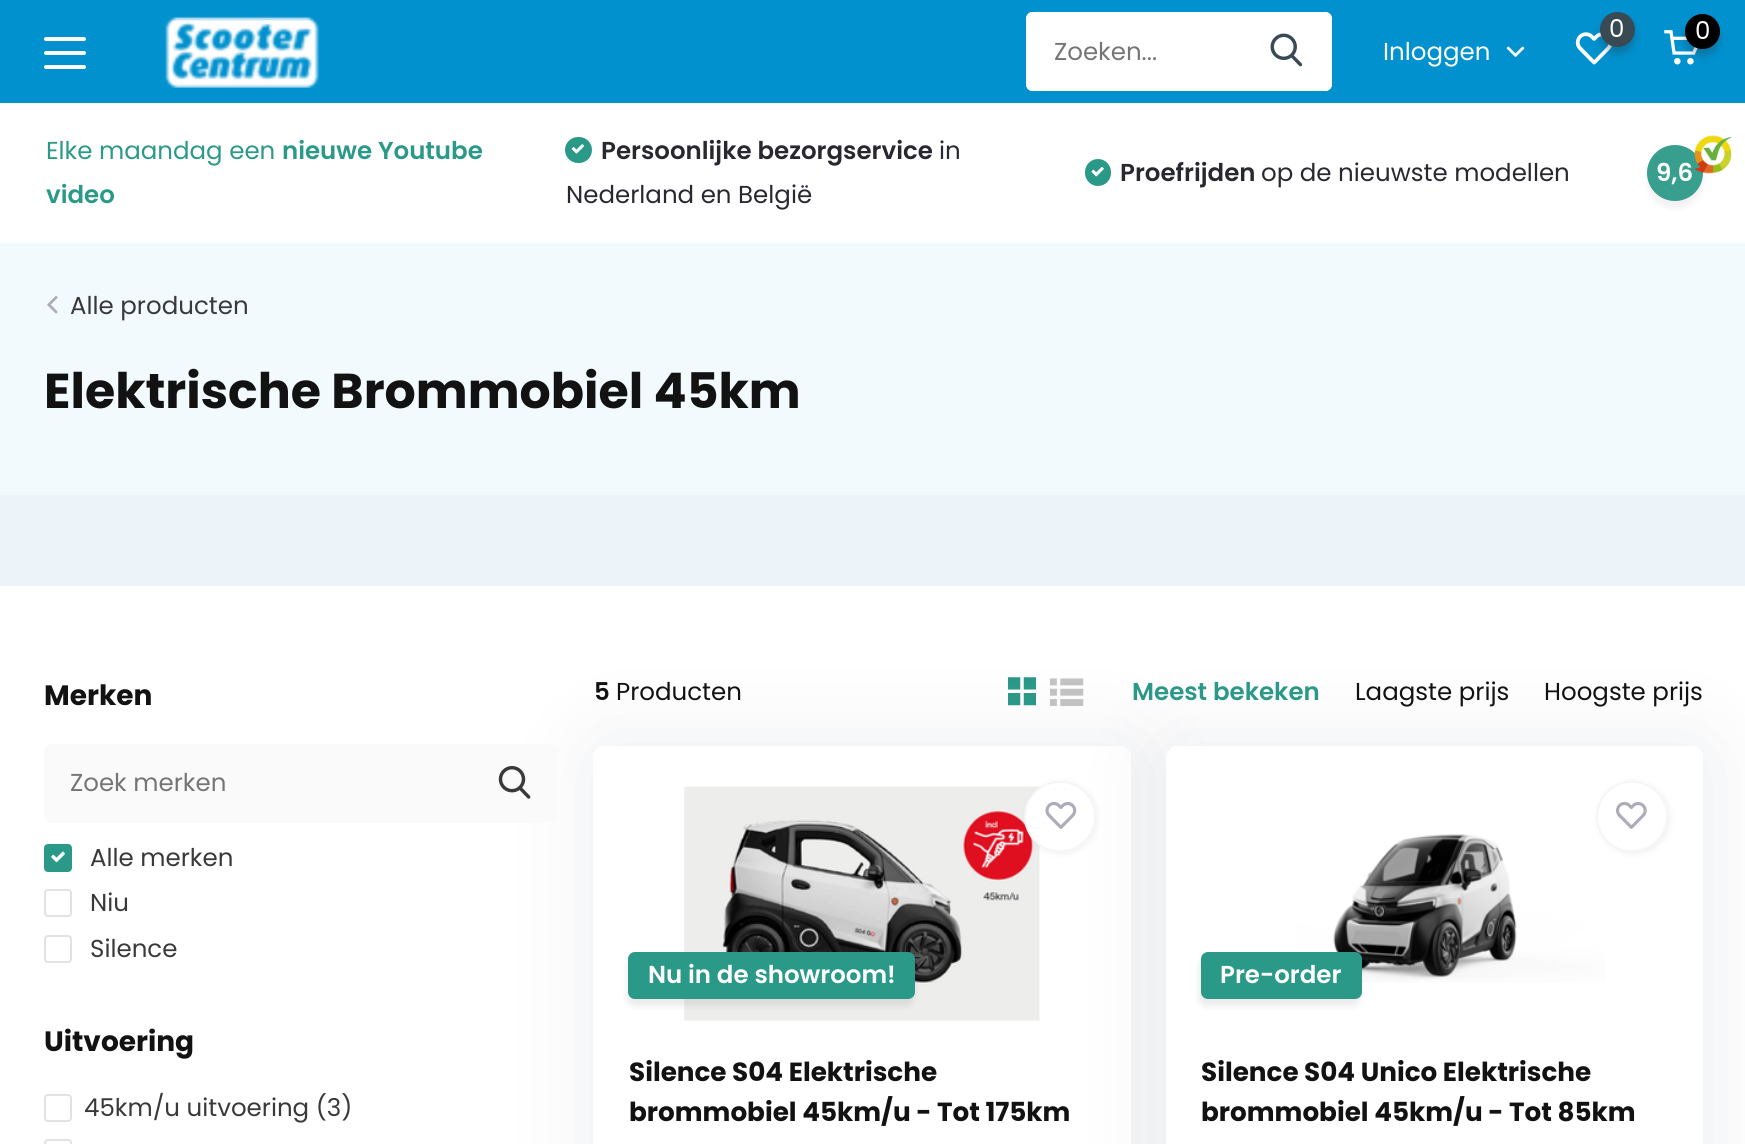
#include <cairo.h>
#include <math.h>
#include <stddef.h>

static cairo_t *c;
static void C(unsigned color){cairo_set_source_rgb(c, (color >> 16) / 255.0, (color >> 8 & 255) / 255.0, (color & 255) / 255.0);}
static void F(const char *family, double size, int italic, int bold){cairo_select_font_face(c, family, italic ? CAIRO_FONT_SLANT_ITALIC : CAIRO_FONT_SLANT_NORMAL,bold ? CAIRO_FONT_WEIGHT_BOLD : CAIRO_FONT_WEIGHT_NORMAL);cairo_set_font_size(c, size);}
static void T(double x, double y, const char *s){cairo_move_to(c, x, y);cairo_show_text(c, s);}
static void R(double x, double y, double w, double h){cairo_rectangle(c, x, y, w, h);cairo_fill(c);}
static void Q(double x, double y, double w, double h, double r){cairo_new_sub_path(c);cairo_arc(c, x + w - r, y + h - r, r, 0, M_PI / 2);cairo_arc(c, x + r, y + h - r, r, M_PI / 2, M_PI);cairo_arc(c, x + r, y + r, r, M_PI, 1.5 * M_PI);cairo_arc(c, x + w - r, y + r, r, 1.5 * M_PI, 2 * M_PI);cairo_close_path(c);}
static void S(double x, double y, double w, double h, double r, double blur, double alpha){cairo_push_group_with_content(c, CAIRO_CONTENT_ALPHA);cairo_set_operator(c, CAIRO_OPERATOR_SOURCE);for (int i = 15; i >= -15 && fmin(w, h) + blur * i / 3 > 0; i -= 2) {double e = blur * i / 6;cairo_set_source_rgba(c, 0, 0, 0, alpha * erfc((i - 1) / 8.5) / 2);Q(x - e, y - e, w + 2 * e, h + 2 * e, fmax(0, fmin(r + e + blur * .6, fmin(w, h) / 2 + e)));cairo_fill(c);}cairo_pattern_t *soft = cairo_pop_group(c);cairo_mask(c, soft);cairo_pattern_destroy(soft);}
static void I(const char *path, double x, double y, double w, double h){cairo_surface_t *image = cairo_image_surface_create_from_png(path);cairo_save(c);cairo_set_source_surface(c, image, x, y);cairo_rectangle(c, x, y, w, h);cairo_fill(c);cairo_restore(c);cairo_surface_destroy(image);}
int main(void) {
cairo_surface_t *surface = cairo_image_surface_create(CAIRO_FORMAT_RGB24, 1745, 1144);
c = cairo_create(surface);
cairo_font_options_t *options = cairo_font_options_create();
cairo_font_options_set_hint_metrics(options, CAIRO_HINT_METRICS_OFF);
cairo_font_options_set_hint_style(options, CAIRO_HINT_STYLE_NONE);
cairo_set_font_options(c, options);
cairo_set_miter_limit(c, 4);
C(0xffffff);
cairo_paint(c);
C(0x0091ce);
R(0,0,1745,103);
C(0xffffff);
Q(44,37,42,4,2);
cairo_fill(c);
Q(44,51,42,4,2);
cairo_fill(c);
Q(44,65,42,4,2);
cairo_fill(c);
I("1.png",165,16,155,72);
I("2.png",1575,32,37,33);
C(0x282830);
S(1600,19,35,35,17.5,3.5,.25);
C(0x394a54);
cairo_arc(c,1617.5,29.5,17.5,0,2 * M_PI);
cairo_fill(c);
F("Poppins",24.5,0,0);
C(0xffffff);
T(1609,37,"0");
I("3.png",1664,30,34,35);
C(0x282830);
S(1685,21,35,35,17.5,3.5,.25);
C(0x000000);
cairo_arc(c,1702.5,31.5,17.5,0,2 * M_PI);
cairo_fill(c);
C(0xffffff);
T(1695,39,"0");
cairo_new_path(c);
cairo_move_to(c,1033,12);
cairo_line_to(c,1244,12);
cairo_line_to(c,1244,91);
cairo_line_to(c,1033,91);
cairo_curve_to(c,1029,91,1026,88,1026,84);
cairo_line_to(c,1026,19);
cairo_curve_to(c,1026,15,1029,12,1033,12);
cairo_close_path(c);
cairo_fill(c);
cairo_set_fill_rule(c,CAIRO_FILL_RULE_EVEN_ODD);
cairo_new_path(c);
cairo_move_to(c,1032,12);
cairo_line_to(c,1244,12);
cairo_line_to(c,1244,91);
cairo_line_to(c,1032,91);
cairo_curve_to(c,1029,91,1026,88,1026,84);
cairo_line_to(c,1026,19);
cairo_curve_to(c,1026,15,1029,12,1032,12);
cairo_close_path(c);
cairo_move_to(c,1032,14);
cairo_line_to(c,1244,14);
cairo_line_to(c,1244,89);
cairo_line_to(c,1032,89);
cairo_curve_to(c,1030,89,1027,87,1027,84);
cairo_line_to(c,1027,19);
cairo_curve_to(c,1027,16,1030,14,1032,14);
cairo_close_path(c);
cairo_fill(c);
C(0x757575);
T(1054,60,"Zoeken...");
C(0xffffff);
cairo_new_path(c);
cairo_move_to(c,1244,12);
cairo_line_to(c,1325,12);
cairo_curve_to(c,1329,12,1332,15,1332,19);
cairo_line_to(c,1332,84);
cairo_curve_to(c,1332,88,1329,91,1325,91);
cairo_line_to(c,1244,91);
cairo_close_path(c);
cairo_fill(c);
cairo_new_path(c);
cairo_move_to(c,1244,12);
cairo_line_to(c,1325,12);
cairo_curve_to(c,1329,12,1332,15,1332,19);
cairo_line_to(c,1332,84);
cairo_curve_to(c,1332,88,1329,91,1325,91);
cairo_line_to(c,1244,91);
cairo_close_path(c);
cairo_move_to(c,1244,14);
cairo_line_to(c,1325,14);
cairo_curve_to(c,1328,14,1330,16,1330,19);
cairo_line_to(c,1330,84);
cairo_curve_to(c,1330,87,1328,89,1325,89);
cairo_line_to(c,1244,89);
cairo_close_path(c);
cairo_fill(c);
I("4.png",1270,33,33,34);
T(1383,60,"Inloggen");
I("5.png",1506,46,19,11);
C(0x2b9988);
T(46,159,"Elke maandag een");
F("Poppins SemiBold",24.5,0,0);
T(282,159,"nieuwe Youtube");
T(46,203,"video");
Q(565,137,27,26,13);
cairo_fill(c);
I("6.png",571,144,13,10);
C(0x282830);
T(601,159,"Persoonlijke bezorgservice");
F("Poppins",24.5,0,0);
T(939,159,"in");
T(566,203,"Nederland en België");
C(0x2b9988);
Q(1085,159,26,27,13);
cairo_fill(c);
I("7.png",1091,167,13,10);
F("Poppins SemiBold",24.5,0,0);
C(0x282830);
T(1120,181,"Proefrijden");
F("Poppins",24.5,0,0);
T(1261,181,"op de nieuwste modellen");
C(0x000000);
S(1647,152,56,56,28,3.5,.06);
C(0x389f8f);
cairo_arc(c,1675,173,28,0,2 * M_PI);
cairo_fill(c);
F("Poppins SemiBold",24.5,0,0);
C(0xffffff);
T(1656,181,"9,6");
I("8.png",1694,135,38,39);
C(0xf2fafe);
R(0,243,1745,252);
I("9.png",47,296,11,18);
F("Poppins",24.5,0,0);
C(0x393939);
T(70,314,"Alle producten");
F("Poppins",49,0,1);
C(0x121212);
T(44,408,"Elektrische Brommobiel 45km");
C(0xecf4f9);
R(0,495,1745,91);
F("Poppins",28,0,1);
C(0x121212);
T(44,705,"Merken");
I("12.png",1008,677,28,29);
I("13.png",1050,678,34,28);
C(0x263f4d);
S(597,749,537,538,11,44,.1);
C(0xfafafa);
Q(44,744,514,79,7);
cairo_fill(c);
F("Poppins",24.5,0,0);
C(0x757575);
T(70,791,"Zoek merken");
I("10.png",498,766,33,33);
C(0x2b9988);
Q(45,845,26,26,3);
cairo_fill_preserve(c);
cairo_stroke(c);
I("11.png",51,851,14,12);
Q(45,845,21,20,10);
cairo_stroke(c);
C(0x393939);
T(90,866,"Alle merken");
Q(45,890,26,26,3);
C(0xe2e2e2);
cairo_stroke(c);
C(0x393939);
T(90,911,"Niu");
Q(45,936,26,26,3);
C(0xe2e2e2);
cairo_stroke(c);
C(0x393939);
T(90,957,"Silence");
F("Poppins",28,0,1);
C(0x121212);
T(44,1051,"Uitvoering");
Q(45,1095,26,26,3);
C(0xe2e2e2);
cairo_stroke(c);
F("Poppins",24.5,0,0);
C(0x393939);
T(84,1116,"45km/u uitvoering (3)");
Q(45,1140,26,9,3);
C(0xe2e2e2);
cairo_stroke(c);
F("Poppins SemiBold",24.5,0,0);
C(0x121212);
T(594,700,"5");
F("Poppins",24.5,0,0);
T(616,700,"Producten");
F("Poppins SemiBold",24.5,0,0);
C(0x2b9988);
T(1132,700,"Meest bekeken");
F("Poppins",24.5,0,0);
C(0x121212);
T(1355,700,"Laagste prijs");
T(1544,700,"Hoogste prijs");
C(0xffffff);
Q(593,746,538,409,11);
cairo_fill(c);
I("15.png",684,786,356,235);
C(0x000000);
S(1026,782,71,72,35.5,3.5,.06);
C(0x263f4d);
S(1169,749,537,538,11,44,.1);
C(0xffffff);
Q(1025,782,70,69,34.5);
cairo_fill_preserve(c);
C(0xf6f6f6);
cairo_stroke(c);
I("14.png",1045,801,32,28);
C(0x000000);
S(627,959,287,47,7,3.5,.08);
C(0x2b9988);
Q(628,952,287,47,7);
cairo_fill(c);
F("Poppins SemiBold",24.5,0,0);
C(0xffffff);
T(648,983,"Nu in de showroom!");
F("Poppins",26.25,0,1);
C(0x121212);
T(629,1081,"Silence S04 Elektrische");
T(629,1121,"brommobiel 45km/u - Tot 175km");
C(0xffffff);
Q(1166,746,537,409,11);
cairo_fill(c);
I("17.png",1296,834,309,149);
C(0x000000);
S(1598,782,72,72,36,3.5,.06);
C(0xffffff);
Q(1597,782,70,69,34.5);
cairo_fill_preserve(c);
C(0xf6f6f6);
cairo_stroke(c);
I("16.png",1616,801,31,28);
C(0x000000);
S(1199,959,161,47,7,3.5,.08);
C(0x2b9988);
Q(1201,952,161,47,7);
cairo_fill(c);
F("Poppins SemiBold",24.5,0,0);
C(0xffffff);
T(1220,983,"Pre-order");
F("Poppins",26.25,0,1);
C(0x121212);
T(1201,1081,"Silence S04 Unico Elektrische");
T(1201,1121,"brommobiel 45km/u - Tot 85km");
cairo_surface_write_to_png(surface, "o.png");
cairo_font_options_destroy(options);
cairo_destroy(c);
cairo_surface_destroy(surface);
return 0;
}
